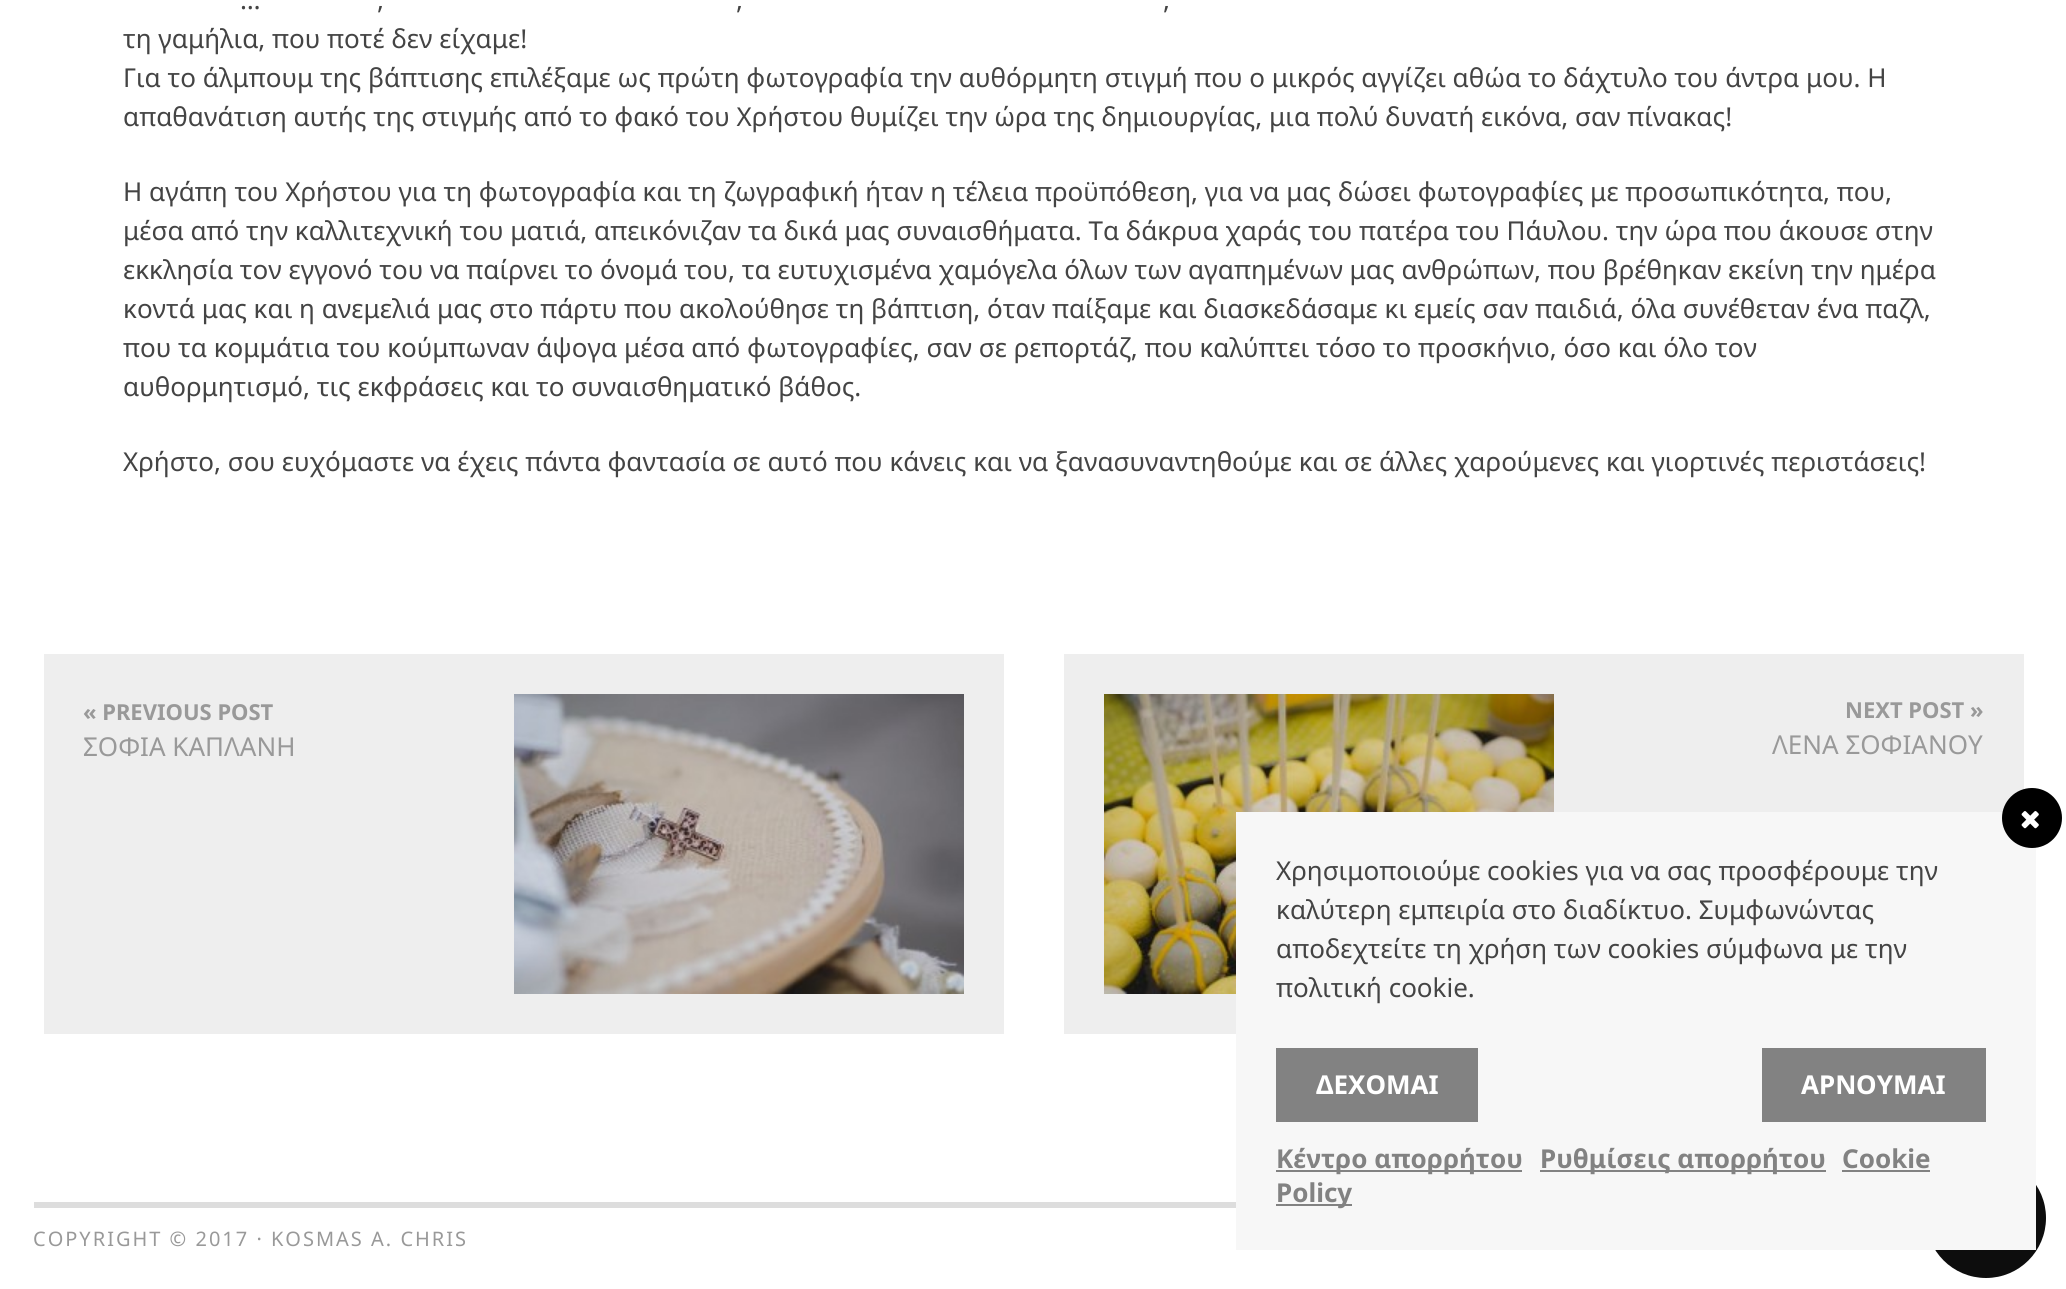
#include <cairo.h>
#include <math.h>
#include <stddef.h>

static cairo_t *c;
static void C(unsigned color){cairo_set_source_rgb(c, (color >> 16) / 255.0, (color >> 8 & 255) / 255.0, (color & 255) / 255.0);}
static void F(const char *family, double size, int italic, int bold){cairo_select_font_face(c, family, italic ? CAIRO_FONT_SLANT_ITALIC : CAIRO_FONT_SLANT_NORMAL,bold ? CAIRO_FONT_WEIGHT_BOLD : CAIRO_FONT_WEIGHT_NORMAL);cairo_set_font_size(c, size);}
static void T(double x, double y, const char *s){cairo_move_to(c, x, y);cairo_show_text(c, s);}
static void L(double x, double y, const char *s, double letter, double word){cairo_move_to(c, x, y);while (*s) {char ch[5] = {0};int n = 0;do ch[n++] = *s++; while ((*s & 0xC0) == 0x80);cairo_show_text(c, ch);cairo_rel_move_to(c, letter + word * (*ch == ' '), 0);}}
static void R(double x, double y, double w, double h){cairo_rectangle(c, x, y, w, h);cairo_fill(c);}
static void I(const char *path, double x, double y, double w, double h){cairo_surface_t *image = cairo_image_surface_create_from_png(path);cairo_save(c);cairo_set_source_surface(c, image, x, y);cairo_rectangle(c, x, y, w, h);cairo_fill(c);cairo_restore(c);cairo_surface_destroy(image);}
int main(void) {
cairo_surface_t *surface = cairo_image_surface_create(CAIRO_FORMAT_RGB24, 2066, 1289);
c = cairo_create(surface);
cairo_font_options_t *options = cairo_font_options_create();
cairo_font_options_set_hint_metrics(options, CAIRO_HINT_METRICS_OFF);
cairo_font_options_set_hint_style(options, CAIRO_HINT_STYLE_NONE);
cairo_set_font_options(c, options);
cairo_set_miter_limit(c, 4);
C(0xffffff);
cairo_paint(c);
F("Noto Sans",26,0,0);
C(0x444444);
T(240,9,"…");
T(377,9,",");
T(736,9,",");
T(1163,9,",");
T(123,48,"τη γαμήλια, που ποτέ δεν είχαμε!");
T(123,87,"Για το άλμπουμ της βάπτισης επιλέξαμε ως πρώτη φωτογραφία την αυθόρμητη στιγμή που ο μικρός αγγίζει αθώα το δάχτυλο του άντρα μου. Η");
T(123,126,"απαθανάτιση αυτής της στιγμής από το φακό του Χρήστου θυμίζει την ώρα της δημιουργίας, μια πολύ δυνατή εικόνα, σαν πίνακας!");
T(123,201,"Η αγάπη του Χρήστου για τη φωτογραφία και τη ζωγραφική ήταν η τέλεια προϋπόθεση, για να μας δώσει φωτογραφίες με προσωπικότητα, που,");
T(123,240,"μέσα από την καλλιτεχνική του ματιά, απεικόνιζαν τα δικά μας συναισθήματα. Τα δάκρυα χαράς του πατέρα του Πάυλου. την ώρα που άκουσε στην");
T(123,279,"εκκλησία τον εγγονό του να παίρνει το όνομά του, τα ευτυχισμένα χαμόγελα όλων των αγαπημένων μας ανθρώπων, που βρέθηκαν εκείνη την ημέρα");
T(123,318,"κοντά μας και η ανεμελιά μας στο πάρτυ που ακολούθησε τη βάπτιση, όταν παίξαμε και διασκεδάσαμε κι εμείς σαν παιδιά, όλα συνέθεταν ένα παζλ,");
T(123,357,"που τα κομμάτια του κούμπωναν άψογα μέσα από φωτογραφίες, σαν σε ρεπορτάζ, που καλύπτει τόσο το προσκήνιο, όσο και όλο τον");
T(123,396,"αυθορμητισμό, τις εκφράσεις και το συναισθηματικό βάθος.");
T(123,471,"Χρήστο, σου ευχόμαστε να έχεις πάντα φαντασία σε αυτό που κάνεις και να ξανασυναντηθούμε και σε άλλες χαρούμενες και γιορτινές περιστάσεις!");
C(0xeeeeee);
R(44,654,960,380);
F("Noto Sans",22,0,1);
C(0x999999);
T(83,720,"« PREVIOUS POST");
F("Noto Sans",26,0,0);
T(83,756,"ΣΟΦΙΑ ΚΑΠΛΑΝΗ");
I("1.png",514,694,450,300);
C(0xeeeeee);
R(1064,654,960,380);
I("2.png",1104,694,450,300);
F("Noto Sans",22,0,1);
C(0x999999);
T(1845,718,"NEXT POST »");
F("Noto Sans",26,0,0);
T(1772,754,"ΛΕΝΑ ΣΟΦΙΑΝΟΥ");
C(0xdddddd);
R(34,1202,1202,6);
F("Noto Sans",20,0,0);
C(0x999999);
L(33,1246,"COPYRIGHT © 2017 · KOSMAS A. CHRIS",2,0);
C(0x0d0d0d);
cairo_new_path(c);
cairo_arc(c,1986,1218,60,0,2 * M_PI);
cairo_fill(c);
C(0xf7f7f7);
R(1236,812,800,438);
C(0x000000);
cairo_arc(c,2032,818,30,0,2 * M_PI);
cairo_fill(c);
I("3.png",2021,811,18,18);
F("Noto Sans",26,0,0);
C(0x444444);
T(1276,880,"Χρησιμοποιούμε cookies για να σας προσφέρουμε την");
T(1276,919,"καλύτερη εμπειρία στο διαδίκτυο. Συμφωνώντας");
T(1276,958,"αποδεχτείτε τη χρήση των cookies σύμφωνα με την");
T(1276,997,"πολιτική cookie.");
C(0x828282);
R(1276,1048,202,74);
F("Noto Sans",26,0,1);
C(0xffffff);
T(1316,1094,"ΔΕΧΟΜΑΙ");
C(0x828282);
R(1762,1048,224,74);
C(0xffffff);
T(1801,1094,"ΑΡΝΟΥΜΑΙ");
C(0x828282);
R(1276,1170,246,2);
T(1276,1168,"Κέντρο απορρήτου");
R(1540,1170,286,2);
T(1540,1168,"Ρυθμίσεις απορρήτου");
T(1842,1168,"Cookie");
R(1842,1170,88,2);
R(1276,1204,76,2);
T(1276,1202,"Policy");
cairo_surface_write_to_png(surface, "o.png");
cairo_font_options_destroy(options);
cairo_destroy(c);
cairo_surface_destroy(surface);
return 0;
}
